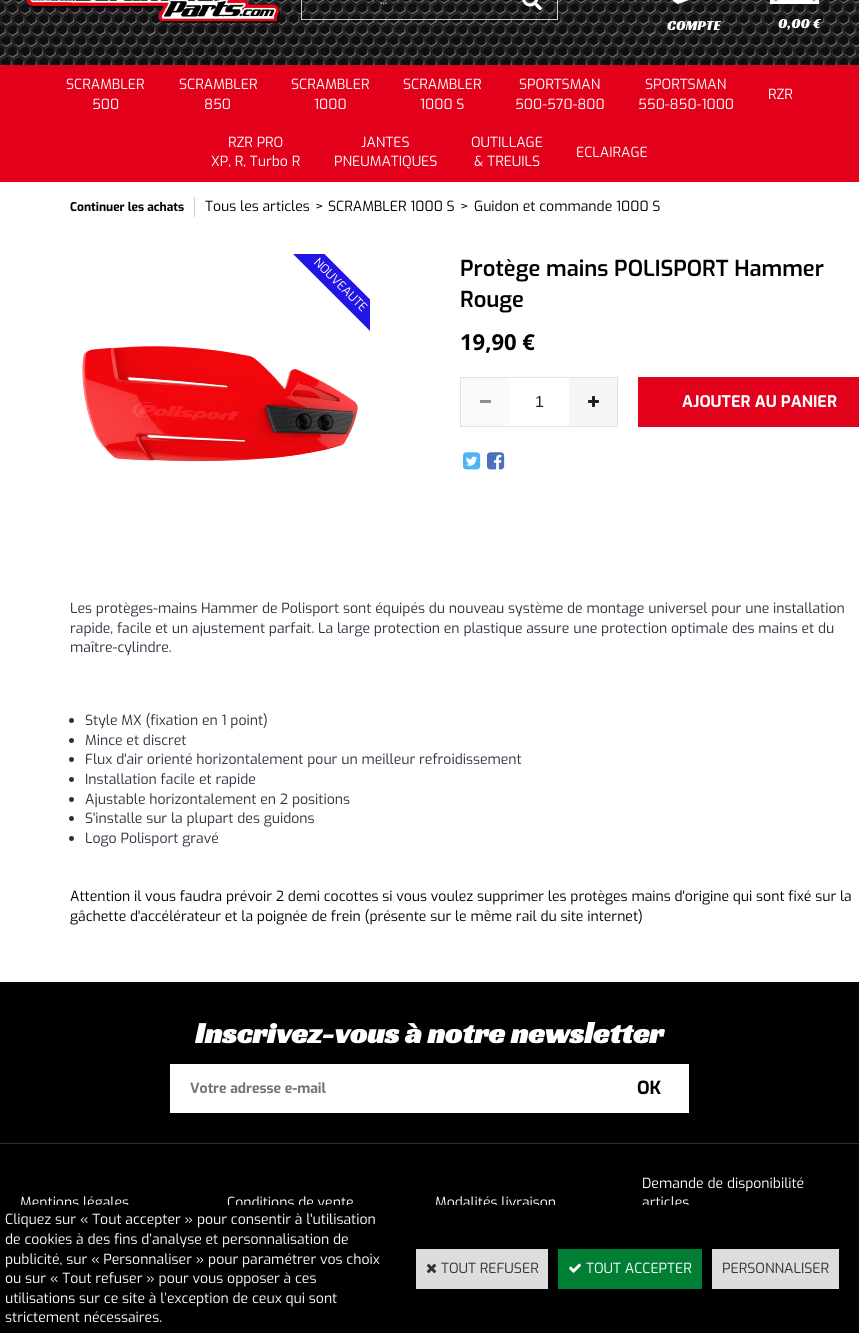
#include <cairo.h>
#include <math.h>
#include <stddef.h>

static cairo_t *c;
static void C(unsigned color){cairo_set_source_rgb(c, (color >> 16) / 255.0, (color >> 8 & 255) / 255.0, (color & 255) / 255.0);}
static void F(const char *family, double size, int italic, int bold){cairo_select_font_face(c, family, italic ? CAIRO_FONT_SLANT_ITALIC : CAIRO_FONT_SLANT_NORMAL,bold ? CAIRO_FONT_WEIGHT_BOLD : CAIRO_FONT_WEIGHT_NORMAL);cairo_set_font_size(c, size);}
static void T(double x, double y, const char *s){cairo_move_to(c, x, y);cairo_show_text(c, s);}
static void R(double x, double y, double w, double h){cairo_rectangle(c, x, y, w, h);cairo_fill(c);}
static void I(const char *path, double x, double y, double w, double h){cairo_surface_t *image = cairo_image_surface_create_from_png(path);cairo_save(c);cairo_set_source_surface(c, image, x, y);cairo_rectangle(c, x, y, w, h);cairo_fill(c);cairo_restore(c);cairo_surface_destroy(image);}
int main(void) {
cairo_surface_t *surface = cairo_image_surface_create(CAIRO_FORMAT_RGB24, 859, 1333);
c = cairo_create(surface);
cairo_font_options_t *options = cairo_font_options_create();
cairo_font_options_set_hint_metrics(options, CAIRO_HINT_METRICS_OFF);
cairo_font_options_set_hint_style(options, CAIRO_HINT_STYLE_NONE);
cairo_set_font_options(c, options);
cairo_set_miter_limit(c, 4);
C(0xffffff);
cairo_paint(c);
I("1.png",0,0,859,65);
I("2.png",27,0,253,24);
C(0xd0d0d0);
R(301,19,206,1);
R(301,0,1,20);
F("Exo",12,0,0);
C(0xffffff);
T(380,4,"...");
C(0xd0d0d0);
R(557,0,1,20);
R(507,19,51,1);
I("3.png",522,0,20,11);
I("4.png",673,0,48,4);
F("Racing Sans One",14,0,0);
C(0xffffff);
T(667,30,"COMPTE");
I("5.png",770,0,59,4);
T(778,28,"0,00 €");
C(0xe2001a);
R(0,65,859,117);
F("Exo",14,0,0);
C(0xffffff);
T(66,89,"SCRAMBLER");
T(92,109,"500");
T(179,89,"SCRAMBLER");
T(204,109,"850");
T(291,89,"SCRAMBLER");
T(314,109,"1000");
T(403,89,"SCRAMBLER");
T(420,109,"1000 S");
T(519,89,"SPORTSMAN");
T(515,109,"500-570-800");
T(645,89,"SPORTSMAN");
T(638,109,"550-850-1000");
T(768,99,"RZR");
T(228,147,"RZR PRO");
T(211,166,"XP, R, Turbo R");
T(361,147,"JANTES");
T(334,166,"PNEUMATIQUES");
T(471,147,"OUTILLAGE");
T(474,166,"& TREUILS");
T(576,157,"ECLAIRAGE");
F("Exo",12,0,1);
C(0x000000);
T(70,211,"Continuer les achats");
C(0xcccccc);
R(194,197,1,20);
F("Exo",14,0,0);
C(0x000000);
T(205,211,"Tous les articles");
T(315,211,">");
T(328,211,"SCRAMBLER 1000 S");
T(460,211,">");
T(474,211,"Guidon et commande 1000 S");
cairo_save(c);
cairo_rectangle(c,70,254,300,300);
cairo_clip(c);
C(0x2315e6);
cairo_new_path(c);
cairo_move_to(c,224,154);
cairo_line_to(c,472,401);
cairo_line_to(c,456,417);
cairo_line_to(c,208,169);
cairo_close_path(c);
cairo_fill(c);
cairo_restore(c);
F("Exo",12,0,0);
C(0xffffff);
cairo_save(c);
cairo_translate(c,313,263);
cairo_rotate(c,45 * M_PI / 180);
T(0,0,"NOUVEAUTE");
cairo_restore(c);
I("6.png",82,345,276,117);
F("Exo SemiBold",22,0,0);
C(0x000000);
T(460,276,"Protège mains POLISPORT Hammer");
T(460,307,"Rouge");
F("Open Sans",22,0,1);
T(460,350,"19,90 €");
cairo_rectangle(c,460.5,377.5,157,49);
C(0xe3e3e3);
cairo_set_line_width(c,1);
cairo_stroke(c);
C(0xfafafa);
R(461,378,48,48);
C(0x8e8e8e);
R(480,400,11,3);
F("Liberation Sans",16,0,0);
C(0x212121);
T(535,407,"1");
C(0xf5f5f5);
R(569,378,48,48);
I("7.png",588,396,11,11);
C(0xe2001a);
R(638,377,221,50);
F("Exo",16,0,1);
C(0xffffff);
T(682,407,"AJOUTER AU PANIER");
I("8.png",463,452,18,18);
I("9.png",487,452,18,18);
F("Exo",14,0,0);
C(0x2b323f);
T(70,613,"Les protèges-mains Hammer de Polisport sont équipés du nouveau système de montage universel pour une installation");
T(70,633,"rapide, facile et un ajustement parfait. La large protection en plastique assure une protection optimale des mains et du");
T(70,652,"maître-cylindre.");
cairo_new_path(c);
cairo_arc(c,71.5,720.5,2.5,0,2 * M_PI);
cairo_fill(c);
T(85,725,"Style MX (fixation en 1 point)");
cairo_new_path(c);
cairo_arc(c,71.5,740.5,2.5,0,2 * M_PI);
cairo_fill(c);
T(85,745,"Mince et discret");
cairo_new_path(c);
cairo_arc(c,71.5,759.5,2.5,0,2 * M_PI);
cairo_fill(c);
T(85,764,"Flux d'air orienté horizontalement pour un meilleur refroidissement");
cairo_new_path(c);
cairo_arc(c,71.5,779.5,2.5,0,2 * M_PI);
cairo_fill(c);
T(85,784,"Installation facile et rapide");
cairo_new_path(c);
cairo_arc(c,71.5,799.5,2.5,0,2 * M_PI);
cairo_fill(c);
T(85,804,"Ajustable horizontalement en 2 positions");
cairo_new_path(c);
cairo_arc(c,71.5,818.5,2.5,0,2 * M_PI);
cairo_fill(c);
T(85,823,"S'installe sur la plupart des guidons");
cairo_new_path(c);
cairo_arc(c,71.5,838.5,2.5,0,2 * M_PI);
cairo_fill(c);
T(85,843,"Logo Polisport gravé");
C(0x000000);
T(70,901,"Attention il vous faudra prévoir 2 demi cocottes si vous voulez supprimer les protèges mains d'origine qui sont fixé sur la");
T(70,921,"gâchette d'accélérateur et la poignée de frein (présente sur le même rail du site internet)");
R(0,982,859,223);
C(0x2e2e2e);
R(0,1143,859,1);
F("Racing Sans One",30,0,1);
C(0xffffff);
T(195,1043,"Inscrivez-vous à notre newsletter");
R(170,1064,519,49);
F("Exo",14,0,1);
C(0x757575);
T(190,1093,"Votre adresse e-mail");
F("Exo",18,0,1);
C(0x000000);
T(637,1094,"OK");
F("Exo",14,0,0);
C(0xffffff);
T(20,1207,"Mentions légales");
T(227,1207,"Conditions de vente");
T(435,1207,"Modalités livraison");
T(642,1188,"Demande de disponibilité");
T(642,1207,"articles");
C(0x000000);
R(0,1205,859,128);
C(0xffffff);
T(5,1224,"Cliquez sur « Tout accepter » pour consentir à l'utilisation");
T(5,1244,"de cookies à des fins d’analyse et personnalisation de");
T(5,1264,"publicité, sur « Personnaliser » pour paramétrer vos choix");
T(5,1283,"ou sur « Tout refuser » pour vous opposer à ces");
T(5,1303,"utilisations sur ce site à l’exception de ceux qui sont");
T(5,1322,"strictement nécessaires.");
C(0xdddddd);
R(416,1249,132,40);
I("10.png",426,1263,11,11);
C(0x333333);
T(441,1273,"TOUT REFUSER");
C(0x007e33);
R(558,1249,144,40);
I("11.png",569,1263,12,10);
C(0xffffff);
T(586,1273,"TOUT ACCEPTER");
C(0xdddddd);
R(712,1249,127,40);
C(0x333333);
T(722,1273,"PERSONNALISER");
cairo_surface_write_to_png(surface, "o.png");
cairo_font_options_destroy(options);
cairo_destroy(c);
cairo_surface_destroy(surface);
return 0;
}
